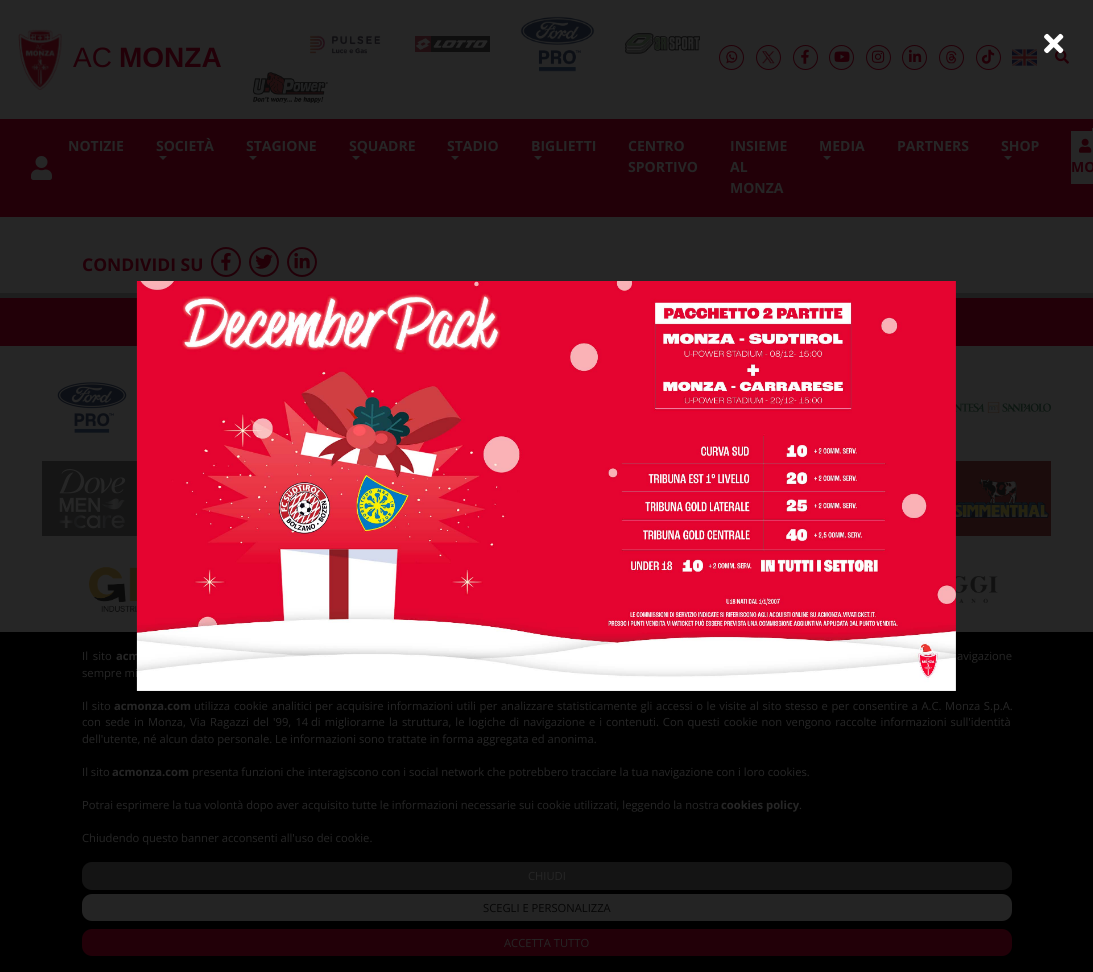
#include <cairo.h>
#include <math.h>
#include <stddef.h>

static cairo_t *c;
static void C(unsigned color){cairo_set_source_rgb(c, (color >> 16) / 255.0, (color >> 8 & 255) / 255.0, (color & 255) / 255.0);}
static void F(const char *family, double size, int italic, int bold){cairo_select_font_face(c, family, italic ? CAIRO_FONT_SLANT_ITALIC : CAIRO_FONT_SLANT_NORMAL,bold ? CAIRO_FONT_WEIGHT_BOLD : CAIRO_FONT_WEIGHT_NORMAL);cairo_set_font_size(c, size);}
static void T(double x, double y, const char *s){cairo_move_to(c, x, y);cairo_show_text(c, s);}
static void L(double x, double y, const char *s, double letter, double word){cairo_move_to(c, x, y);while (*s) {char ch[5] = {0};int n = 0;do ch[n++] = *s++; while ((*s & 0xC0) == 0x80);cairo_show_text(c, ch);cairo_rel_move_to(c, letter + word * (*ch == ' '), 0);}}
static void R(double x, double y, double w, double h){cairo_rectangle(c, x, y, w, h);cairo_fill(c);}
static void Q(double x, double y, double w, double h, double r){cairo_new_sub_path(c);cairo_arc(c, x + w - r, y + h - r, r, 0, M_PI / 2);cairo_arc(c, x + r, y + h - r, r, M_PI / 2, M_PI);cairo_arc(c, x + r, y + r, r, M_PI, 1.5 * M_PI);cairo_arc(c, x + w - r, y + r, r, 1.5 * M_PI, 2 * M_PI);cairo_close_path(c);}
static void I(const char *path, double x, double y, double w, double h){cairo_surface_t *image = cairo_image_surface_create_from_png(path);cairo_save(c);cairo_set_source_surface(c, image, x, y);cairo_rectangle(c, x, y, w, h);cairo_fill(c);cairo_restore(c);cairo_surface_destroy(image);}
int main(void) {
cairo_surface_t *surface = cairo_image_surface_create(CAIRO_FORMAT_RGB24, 1093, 972);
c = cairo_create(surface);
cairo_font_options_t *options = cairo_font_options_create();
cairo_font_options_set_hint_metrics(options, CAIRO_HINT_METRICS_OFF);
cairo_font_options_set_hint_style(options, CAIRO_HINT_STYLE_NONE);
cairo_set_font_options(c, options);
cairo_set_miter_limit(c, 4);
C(0x262626);
cairo_paint(c);
I("18.png",1055,50,14,14);
I("1.png",1044,33,20,21);
C(0x220008);
R(0,298,1093,48);
C(0x1e1e1e);
R(0,293,1093,5);
I("25.png",955,402,96,11);
I("26.png",42,461,95,75);
I("27.png",955,461,96,75);
I("28.png",89,566,48,47);
I("29.png",955,576,43,27);
C(0x000000);
R(0,632,1093,340);
F("Open Sans",11.2,0,1);
C(0x262626);
T(116,660,"acm");
F("Open Sans",11.2,0,0);
T(82,677,"sempre mi");
I("2.png",136,281,820,410);
I("3.png",18,29,44,61);
F("Liberation Sans",28,0,0);
C(0x220008);
T(73,67,"AC");
F("Liberation Sans",28,0,1);
T(119,67,"MONZA");
I("4.png",310,35,71,19);
I("5.png",415,36,75,16);
I("6.png",520,16,75,56);
I("7.png",625,33,75,21);
I("8.png",253,72,75,31);
cairo_arc(c,731.5,57.5,12,0,2 * M_PI);
cairo_set_line_width(c,1);
cairo_stroke(c);
I("9.png",726,51,12,13);
cairo_arc(c,768.5,57.5,12,0,2 * M_PI);
cairo_stroke(c);
I("10.png",762,51,13,13);
cairo_arc(c,805.5,57.5,12,0,2 * M_PI);
cairo_stroke(c);
I("11.png",801,49,8,15);
cairo_arc(c,841.5,57.5,12,0,2 * M_PI);
cairo_stroke(c);
I("12.png",834,51,16,11);
cairo_arc(c,878.5,57.5,12,0,2 * M_PI);
cairo_stroke(c);
I("13.png",871,50,14,13);
cairo_arc(c,914.5,57.5,12,0,2 * M_PI);
cairo_stroke(c);
I("14.png",908,49,14,13);
cairo_arc(c,951.5,57.5,12,0,2 * M_PI);
cairo_stroke(c);
I("15.png",946,51,11,13);
cairo_arc(c,988.5,57.5,12,0,2 * M_PI);
cairo_stroke(c);
I("16.png",981,49,14,15);
I("17.png",1012,49,25,17);
R(0,119,1093,98);
I("19.png",31,156,21,24);
F("Open Sans",14,0,1);
C(0x262626);
T(68,151,"NOTIZIE");
T(156,151,"SOCIETÀ");
cairo_new_path(c);
cairo_move_to(c,159,156);
cairo_line_to(c,167,156);
cairo_line_to(c,163,160);
cairo_close_path(c);
cairo_fill(c);
T(246,151,"STAGIONE");
cairo_new_path(c);
cairo_move_to(c,249,156);
cairo_line_to(c,257,156);
cairo_line_to(c,253,160);
cairo_close_path(c);
cairo_fill(c);
T(349,151,"SQUADRE");
cairo_new_path(c);
cairo_move_to(c,352,156);
cairo_line_to(c,360,156);
cairo_line_to(c,356,160);
cairo_close_path(c);
cairo_fill(c);
T(447,151,"STADIO");
cairo_new_path(c);
cairo_move_to(c,451,156);
cairo_line_to(c,459,156);
cairo_line_to(c,455,160);
cairo_close_path(c);
cairo_fill(c);
T(531,151,"BIGLIETTI");
cairo_new_path(c);
cairo_move_to(c,534,156);
cairo_line_to(c,542,156);
cairo_line_to(c,538,160);
cairo_close_path(c);
cairo_fill(c);
T(628,151,"CENTRO");
T(628,172,"SPORTIVO");
T(730,151,"INSIEME");
T(730,172,"AL");
T(730,193,"MONZA");
T(819,151,"MEDIA");
cairo_new_path(c);
cairo_move_to(c,823,156);
cairo_line_to(c,831,156);
cairo_line_to(c,827,160);
cairo_close_path(c);
cairo_fill(c);
T(897,151,"PARTNERS");
T(1001,151,"SHOP");
cairo_new_path(c);
cairo_move_to(c,1004,156);
cairo_line_to(c,1012,156);
cairo_line_to(c,1008,160);
cairo_close_path(c);
cairo_fill(c);
R(1071,131,21,18);
R(1092,128,1,21);
R(1071,149,22,35);
I("20.png",1079,138,13,15);
C(0x220008);
T(1071,172,"MO");
F("Open Sans",17.5,0,1);
T(82,271,"CONDIVIDI SU");
cairo_new_path(c);
cairo_arc(c,226,262,14,0,2 * M_PI);
cairo_set_line_width(c,2);
cairo_stroke(c);
I("21.png",221,252,10,19);
cairo_arc(c,264,262,14,0,2 * M_PI);
cairo_stroke(c);
I("22.png",255,254,18,15);
cairo_arc(c,302,262,14,0,2 * M_PI);
cairo_stroke(c);
I("23.png",294,253,16,16);
I("24.png",57,382,70,51);
F("Open Sans",11.2,0,0);
C(0x262626);
L(82,660,"Il sito",0,2);
L(957,660,"avigazione",0,2);
L(82,710,"Il sito",0,1);
F("Open Sans",11.2,0,1);
T(114,710,"acmonza.com");
F("Open Sans",11.2,0,0);
L(194,710,"utilizza cookie analitici",0,1);
L(315,710,"per acquisire informazioni utili per analizzare statisticamente gli accessi o le visite al sito stesso e per consentire a A.C. Monza S.p.A.",0,.7);
L(82,726,"con sede in Monza, Via Ragazzi del '99, 14",0,1.25);
L(311,726,"di migliorarne la struttura, le logiche di navigazione e i contenuti. Con questi cookie non vengono raccolte informazioni sull'identità",0,1.1);
T(82,743,"dell'utente, né alcun dato personale. Le informazioni sono trattate in forma aggregata ed anonima.");
T(82,776,"Il sito");
F("Open Sans",11.2,0,1);
T(112,776,"acmonza.com");
F("Open Sans",11.2,0,0);
T(192,776,"presenta funzioni che interagiscono con i social network che potrebbero tracciare la tua navigazione con i loro cookies.");
T(82,809,"Potrai esprimere la tua volontà dopo aver acquisito tutte le informazioni necessarie sui cookie utilizzati, leggendo la nostra");
F("Open Sans",11.2,0,1);
T(721,809,"cookies policy");
F("Open Sans",11.2,0,0);
T(799,809,".");
T(82,842,"Chiudendo questo banner acconsenti all'uso dei cookie.");
C(0x141414);
Q(82,862,930,28,10);
cairo_fill(c);
C(0x262626);
T(528,880,"CHIUDI");
C(0x242424);
Q(82,894,930,27,10);
cairo_fill(c);
C(0x050505);
T(483,912,"SCEGLI E PERSONALIZZA");
C(0x220008);
Q(82,929,930,27,10);
cairo_fill(c);
C(0x262626);
T(504,947,"ACCETTA TUTTO");
cairo_surface_write_to_png(surface, "o.png");
cairo_font_options_destroy(options);
cairo_destroy(c);
cairo_surface_destroy(surface);
return 0;
}
